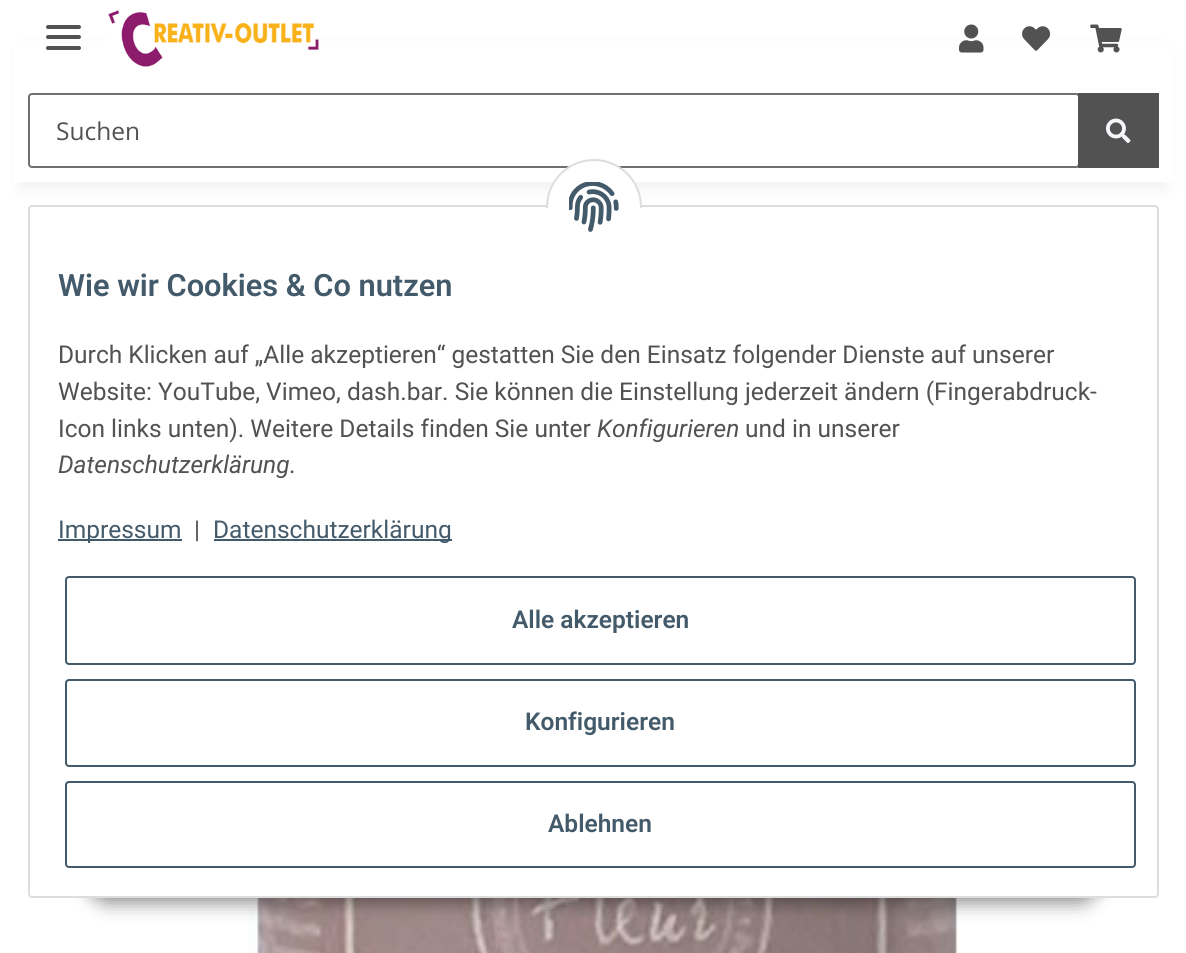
#include <cairo.h>
#include <math.h>
#include <stddef.h>

static cairo_t *c;
static void C(unsigned color){cairo_set_source_rgb(c, (color >> 16) / 255.0, (color >> 8 & 255) / 255.0, (color & 255) / 255.0);}
static void F(const char *family, double size, int italic, int bold){cairo_select_font_face(c, family, italic ? CAIRO_FONT_SLANT_ITALIC : CAIRO_FONT_SLANT_NORMAL,bold ? CAIRO_FONT_WEIGHT_BOLD : CAIRO_FONT_WEIGHT_NORMAL);cairo_set_font_size(c, size);}
static void T(double x, double y, const char *s){cairo_move_to(c, x, y);cairo_show_text(c, s);}
static void R(double x, double y, double w, double h){cairo_rectangle(c, x, y, w, h);cairo_fill(c);}
static void Q(double x, double y, double w, double h, double r){cairo_new_sub_path(c);cairo_arc(c, x + w - r, y + h - r, r, 0, M_PI / 2);cairo_arc(c, x + r, y + h - r, r, M_PI / 2, M_PI);cairo_arc(c, x + r, y + r, r, M_PI, 1.5 * M_PI);cairo_arc(c, x + w - r, y + r, r, 1.5 * M_PI, 2 * M_PI);cairo_close_path(c);}
static void S(double x, double y, double w, double h, double r, double blur, double alpha){cairo_push_group_with_content(c, CAIRO_CONTENT_ALPHA);cairo_set_operator(c, CAIRO_OPERATOR_SOURCE);for (int i = 15; i >= -15 && fmin(w, h) + blur * i / 3 > 0; i -= 2) {double e = blur * i / 6;cairo_set_source_rgba(c, 0, 0, 0, alpha * erfc((i - 1) / 8.5) / 2);Q(x - e, y - e, w + 2 * e, h + 2 * e, fmax(0, fmin(r + e + blur * .6, fmin(w, h) / 2 + e)));cairo_fill(c);}cairo_pattern_t *soft = cairo_pop_group(c);cairo_mask(c, soft);cairo_pattern_destroy(soft);}
static void I(const char *path, double x, double y, double w, double h){cairo_surface_t *image = cairo_image_surface_create_from_png(path);cairo_save(c);cairo_set_source_surface(c, image, x, y);cairo_rectangle(c, x, y, w, h);cairo_fill(c);cairo_restore(c);cairo_surface_destroy(image);}
int main(void) {
cairo_surface_t *surface = cairo_image_surface_create(CAIRO_FORMAT_RGB24, 1186, 953);
c = cairo_create(surface);
cairo_font_options_t *options = cairo_font_options_create();
cairo_font_options_set_hint_metrics(options, CAIRO_HINT_METRICS_OFF);
cairo_font_options_set_hint_style(options, CAIRO_HINT_STYLE_NONE);
cairo_set_font_options(c, options);
cairo_set_miter_limit(c, 4);
C(0xffffff);
cairo_paint(c);
C(0x000000);
S(21,49,1145,140,0,8,.06);
C(0xffffff);
R(13,41,1161,141);
C(0x525252);
Q(46,35,35,4,2);
cairo_fill(c);
Q(46,25,35,4,2);
cairo_fill(c);
Q(46,46,35,4,2);
cairo_fill(c);
I("1.png",108,10,211,57);
I("2.png",959,24,25,29);
I("3.png",1022,26,29,25);
I("4.png",1090,24,32,29);
Q(29,94,1050,73,3);
C(0x707070);
cairo_stroke(c);
F("Open Sans",24.5,0,0);
C(0x525252);
T(56,140,"Suchen");
R(1078,93,81,75);
I("5.png",1106,118,25,25);
I("7.png",247,898,712,55);
C(0x000000);
S(86,847,1015,56,28,9,.45);
C(0xffffff);
Q(29,206,1129,691,3);
cairo_fill_preserve(c);
C(0xdddddd);
cairo_stroke(c);
C(0xffffff);
Q(547,160,94,95,47);
cairo_fill_preserve(c);
C(0xdddddd);
cairo_stroke(c);
C(0xffffff);
R(546,208,96,48);
I("6.png",569,182,50,50);
F("Roboto SemiBold",30.75,0,0);
C(0x435a6b);
T(58,296,"Wie wir Cookies & Co nutzen");
F("Roboto",24.5,0,0);
C(0x525252);
T(58,363,"Durch Klicken auf „Alle akzeptieren“ gestatten Sie den Einsatz folgender Dienste auf unserer");
T(58,400,"Website: YouTube, Vimeo, dash.bar. Sie können die Einstellung jederzeit ändern (Fingerabdruck-");
T(58,437,"Icon links unten). Weitere Details finden Sie unter");
F("Roboto",24.5,1,0);
T(597,437,"Konfigurieren");
F("Roboto",24.5,0,0);
T(745,437,"und in unserer");
F("Roboto",24.5,1,0);
T(58,473,"Datenschutzerklärung");
F("Roboto",24.5,0,0);
T(289,473,".");
C(0x435a6b);
R(58,539,124,2);
T(58,538,"Impressum");
C(0x525252);
T(194,538,"|");
C(0x435a6b);
R(214,539,238,2);
T(213,538,"Datenschutzerklärung");
Q(66,577,1069,87,3);
cairo_stroke(c);
F("Roboto SemiBold",24.5,0,0);
T(512,628,"Alle akzeptieren");
Q(66,680,1069,86,3);
cairo_stroke(c);
T(525,730,"Konfigurieren");
Q(66,782,1069,85,3);
cairo_stroke(c);
T(548,832,"Ablehnen");
cairo_surface_write_to_png(surface, "o.png");
cairo_font_options_destroy(options);
cairo_destroy(c);
cairo_surface_destroy(surface);
return 0;
}
